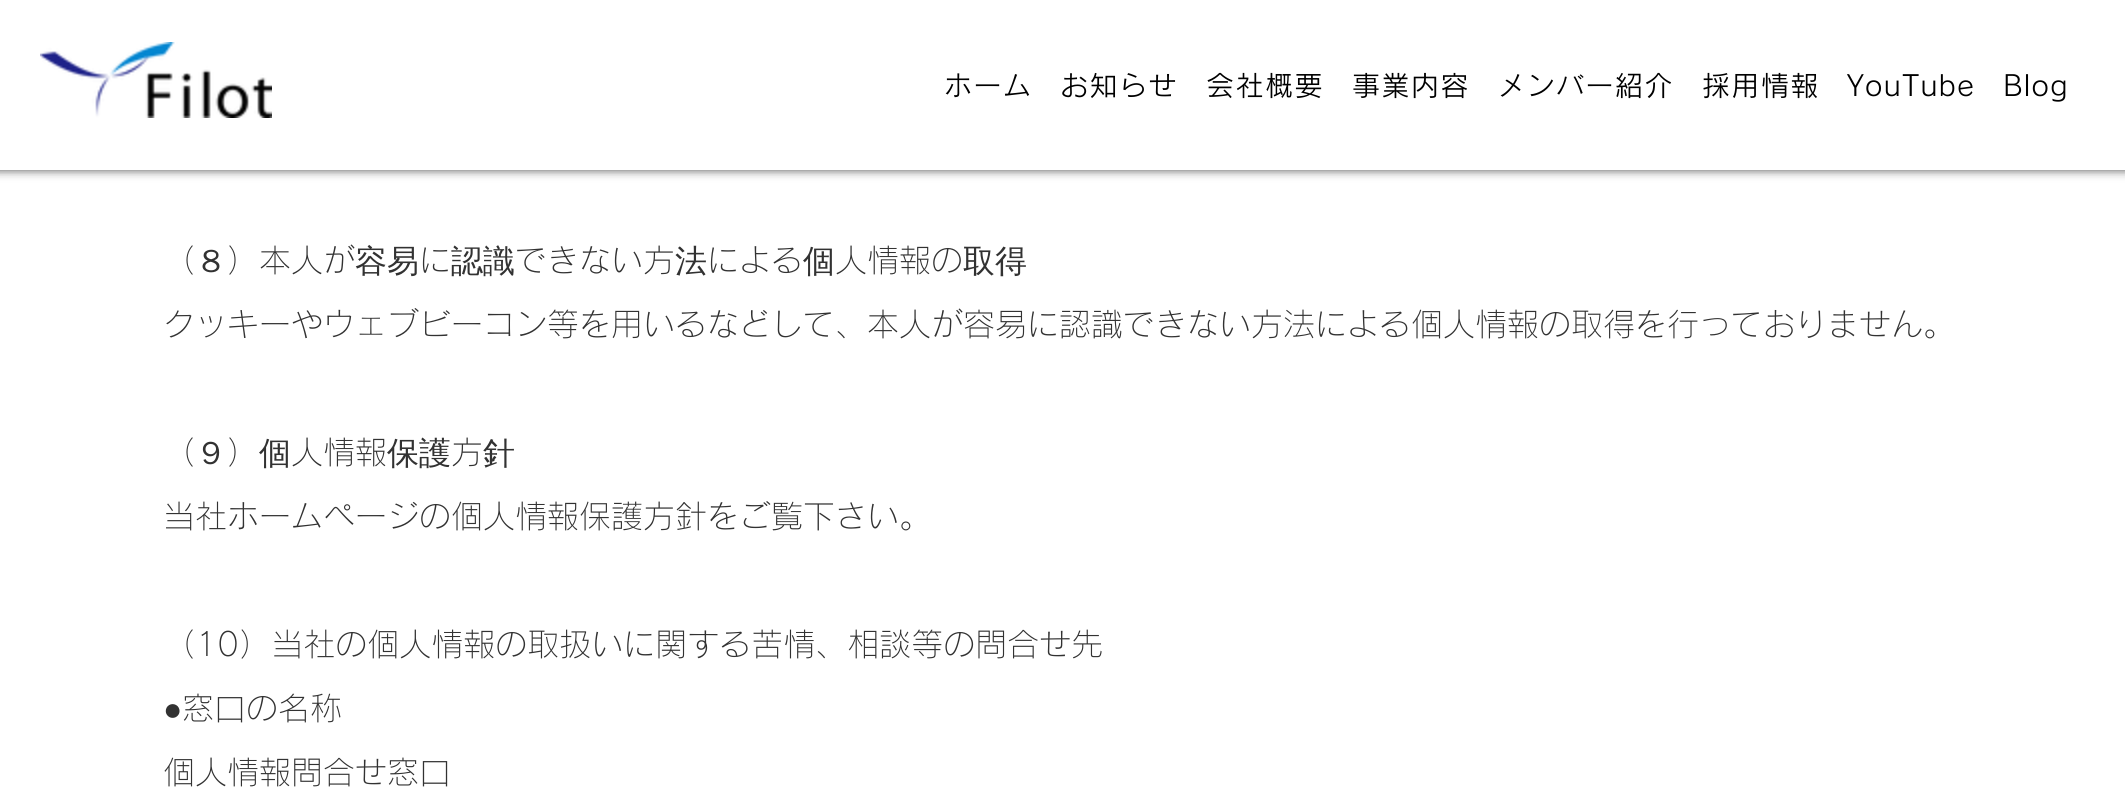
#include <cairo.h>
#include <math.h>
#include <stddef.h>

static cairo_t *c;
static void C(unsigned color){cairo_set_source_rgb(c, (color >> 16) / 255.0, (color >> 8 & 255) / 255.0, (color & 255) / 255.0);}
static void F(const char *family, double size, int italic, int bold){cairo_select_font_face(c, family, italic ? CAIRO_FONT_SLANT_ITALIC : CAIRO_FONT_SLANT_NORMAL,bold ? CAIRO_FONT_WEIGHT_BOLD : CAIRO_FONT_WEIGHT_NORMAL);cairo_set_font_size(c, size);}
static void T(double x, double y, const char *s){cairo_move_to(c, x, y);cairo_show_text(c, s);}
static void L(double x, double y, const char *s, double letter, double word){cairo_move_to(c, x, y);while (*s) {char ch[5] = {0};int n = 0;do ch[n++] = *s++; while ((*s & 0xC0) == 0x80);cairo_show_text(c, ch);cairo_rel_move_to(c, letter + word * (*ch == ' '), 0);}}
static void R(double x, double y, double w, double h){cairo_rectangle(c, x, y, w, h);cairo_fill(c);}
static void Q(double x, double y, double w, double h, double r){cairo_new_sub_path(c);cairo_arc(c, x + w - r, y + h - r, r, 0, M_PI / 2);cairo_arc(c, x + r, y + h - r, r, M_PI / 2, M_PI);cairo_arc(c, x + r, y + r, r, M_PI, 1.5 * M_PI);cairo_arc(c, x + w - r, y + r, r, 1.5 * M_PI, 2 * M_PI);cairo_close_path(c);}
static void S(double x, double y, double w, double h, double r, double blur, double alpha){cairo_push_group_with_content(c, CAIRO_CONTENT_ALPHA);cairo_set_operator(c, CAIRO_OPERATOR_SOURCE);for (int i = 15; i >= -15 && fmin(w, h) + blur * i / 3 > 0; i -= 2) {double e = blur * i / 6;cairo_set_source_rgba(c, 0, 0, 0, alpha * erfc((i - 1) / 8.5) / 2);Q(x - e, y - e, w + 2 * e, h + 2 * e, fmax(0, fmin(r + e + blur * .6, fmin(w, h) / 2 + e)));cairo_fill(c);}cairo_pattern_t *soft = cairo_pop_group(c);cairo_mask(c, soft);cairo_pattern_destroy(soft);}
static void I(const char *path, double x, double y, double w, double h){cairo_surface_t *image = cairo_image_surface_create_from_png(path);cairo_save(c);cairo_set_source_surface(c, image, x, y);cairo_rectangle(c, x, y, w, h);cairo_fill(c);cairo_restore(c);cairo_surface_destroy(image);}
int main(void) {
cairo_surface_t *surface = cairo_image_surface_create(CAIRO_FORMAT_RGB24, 2125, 809);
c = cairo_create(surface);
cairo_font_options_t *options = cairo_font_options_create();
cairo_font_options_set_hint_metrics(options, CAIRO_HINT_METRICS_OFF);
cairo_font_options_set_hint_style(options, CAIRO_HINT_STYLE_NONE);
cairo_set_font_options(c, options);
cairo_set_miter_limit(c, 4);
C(0xffffff);
cairo_paint(c);
C(0x000000);
S(-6,-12,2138,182,0,5,.7);
C(0xffffff);
R(0,0,2125,170);
I("1.png",40,42,232,76);
F("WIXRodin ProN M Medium",28,0,0);
C(0x000000);
L(944,96,"ホーム",1.5,0);
L(1060,96,"お知らせ",1.5,0);
L(1206,96,"会社概要",1.5,0);
L(1352,96,"事業内容",1.5,0);
L(1497,96,"メンバー紹介",1.5,0);
L(1702,96,"採用情報",1.5,0);
L(1847,96,"YouTube",1.5,0);
L(2003,96,"Blog",1.5,0);
F("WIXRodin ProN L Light",32,0,0);
C(0x323232);
T(163,272,"（");
F("WenQuanYi Zen Hei Medium",32,0,0);
T(195,272,"８");
F("WIXRodin ProN L Light",32,0,0);
T(227,272,"）本人が");
F("WenQuanYi Zen Hei Medium",32,0,0);
T(355,272,"容易");
F("WIXRodin ProN L Light",32,0,0);
T(419,272,"に");
F("WenQuanYi Zen Hei Medium",32,0,0);
T(451,272,"認識");
F("WIXRodin ProN L Light",32,0,0);
T(515,272,"できない方");
F("WenQuanYi Zen Hei Medium",32,0,0);
T(675,272,"法");
F("WIXRodin ProN L Light",32,0,0);
T(707,272,"による");
F("WenQuanYi Zen Hei Medium",32,0,0);
T(803,272,"個");
F("WIXRodin ProN L Light",32,0,0);
T(835,272,"人情報の");
F("WenQuanYi Zen Hei Medium",32,0,0);
T(963,272,"取得");
F("WIXRodin ProN L Light",32,0,0);
T(163,336,"クッキーやウェブビーコン等を用いるなどして、本人が容易に認識できない方法による個人情報の取得を行っておりません。");
T(163,464,"（");
F("WenQuanYi Zen Hei Medium",32,0,0);
T(195,464,"９");
F("WIXRodin ProN L Light",32,0,0);
T(227,464,"）");
F("WenQuanYi Zen Hei Medium",32,0,0);
T(259,464,"個");
F("WIXRodin ProN L Light",32,0,0);
T(291,464,"人情報");
F("WenQuanYi Zen Hei Medium",32,0,0);
T(387,464,"保護");
F("WIXRodin ProN L Light",32,0,0);
T(451,464,"方");
F("WenQuanYi Zen Hei Medium",32,0,0);
T(483,464,"針");
F("WIXRodin ProN L Light",32,0,0);
T(163,528,"当社ホームページの個人情報保護方針をご覧下さい。");
T(163,656,"（10）当社の個人情報の取扱いに関する苦情、相談等の問合せ先");
F("Liberation Sans",32,0,0);
T(163,720,"●");
F("WIXRodin ProN L Light",32,0,0);
T(182,720,"窓口の名称");
T(163,784,"個人情報問合せ窓口");
cairo_surface_write_to_png(surface, "o.png");
cairo_font_options_destroy(options);
cairo_destroy(c);
cairo_surface_destroy(surface);
return 0;
}
